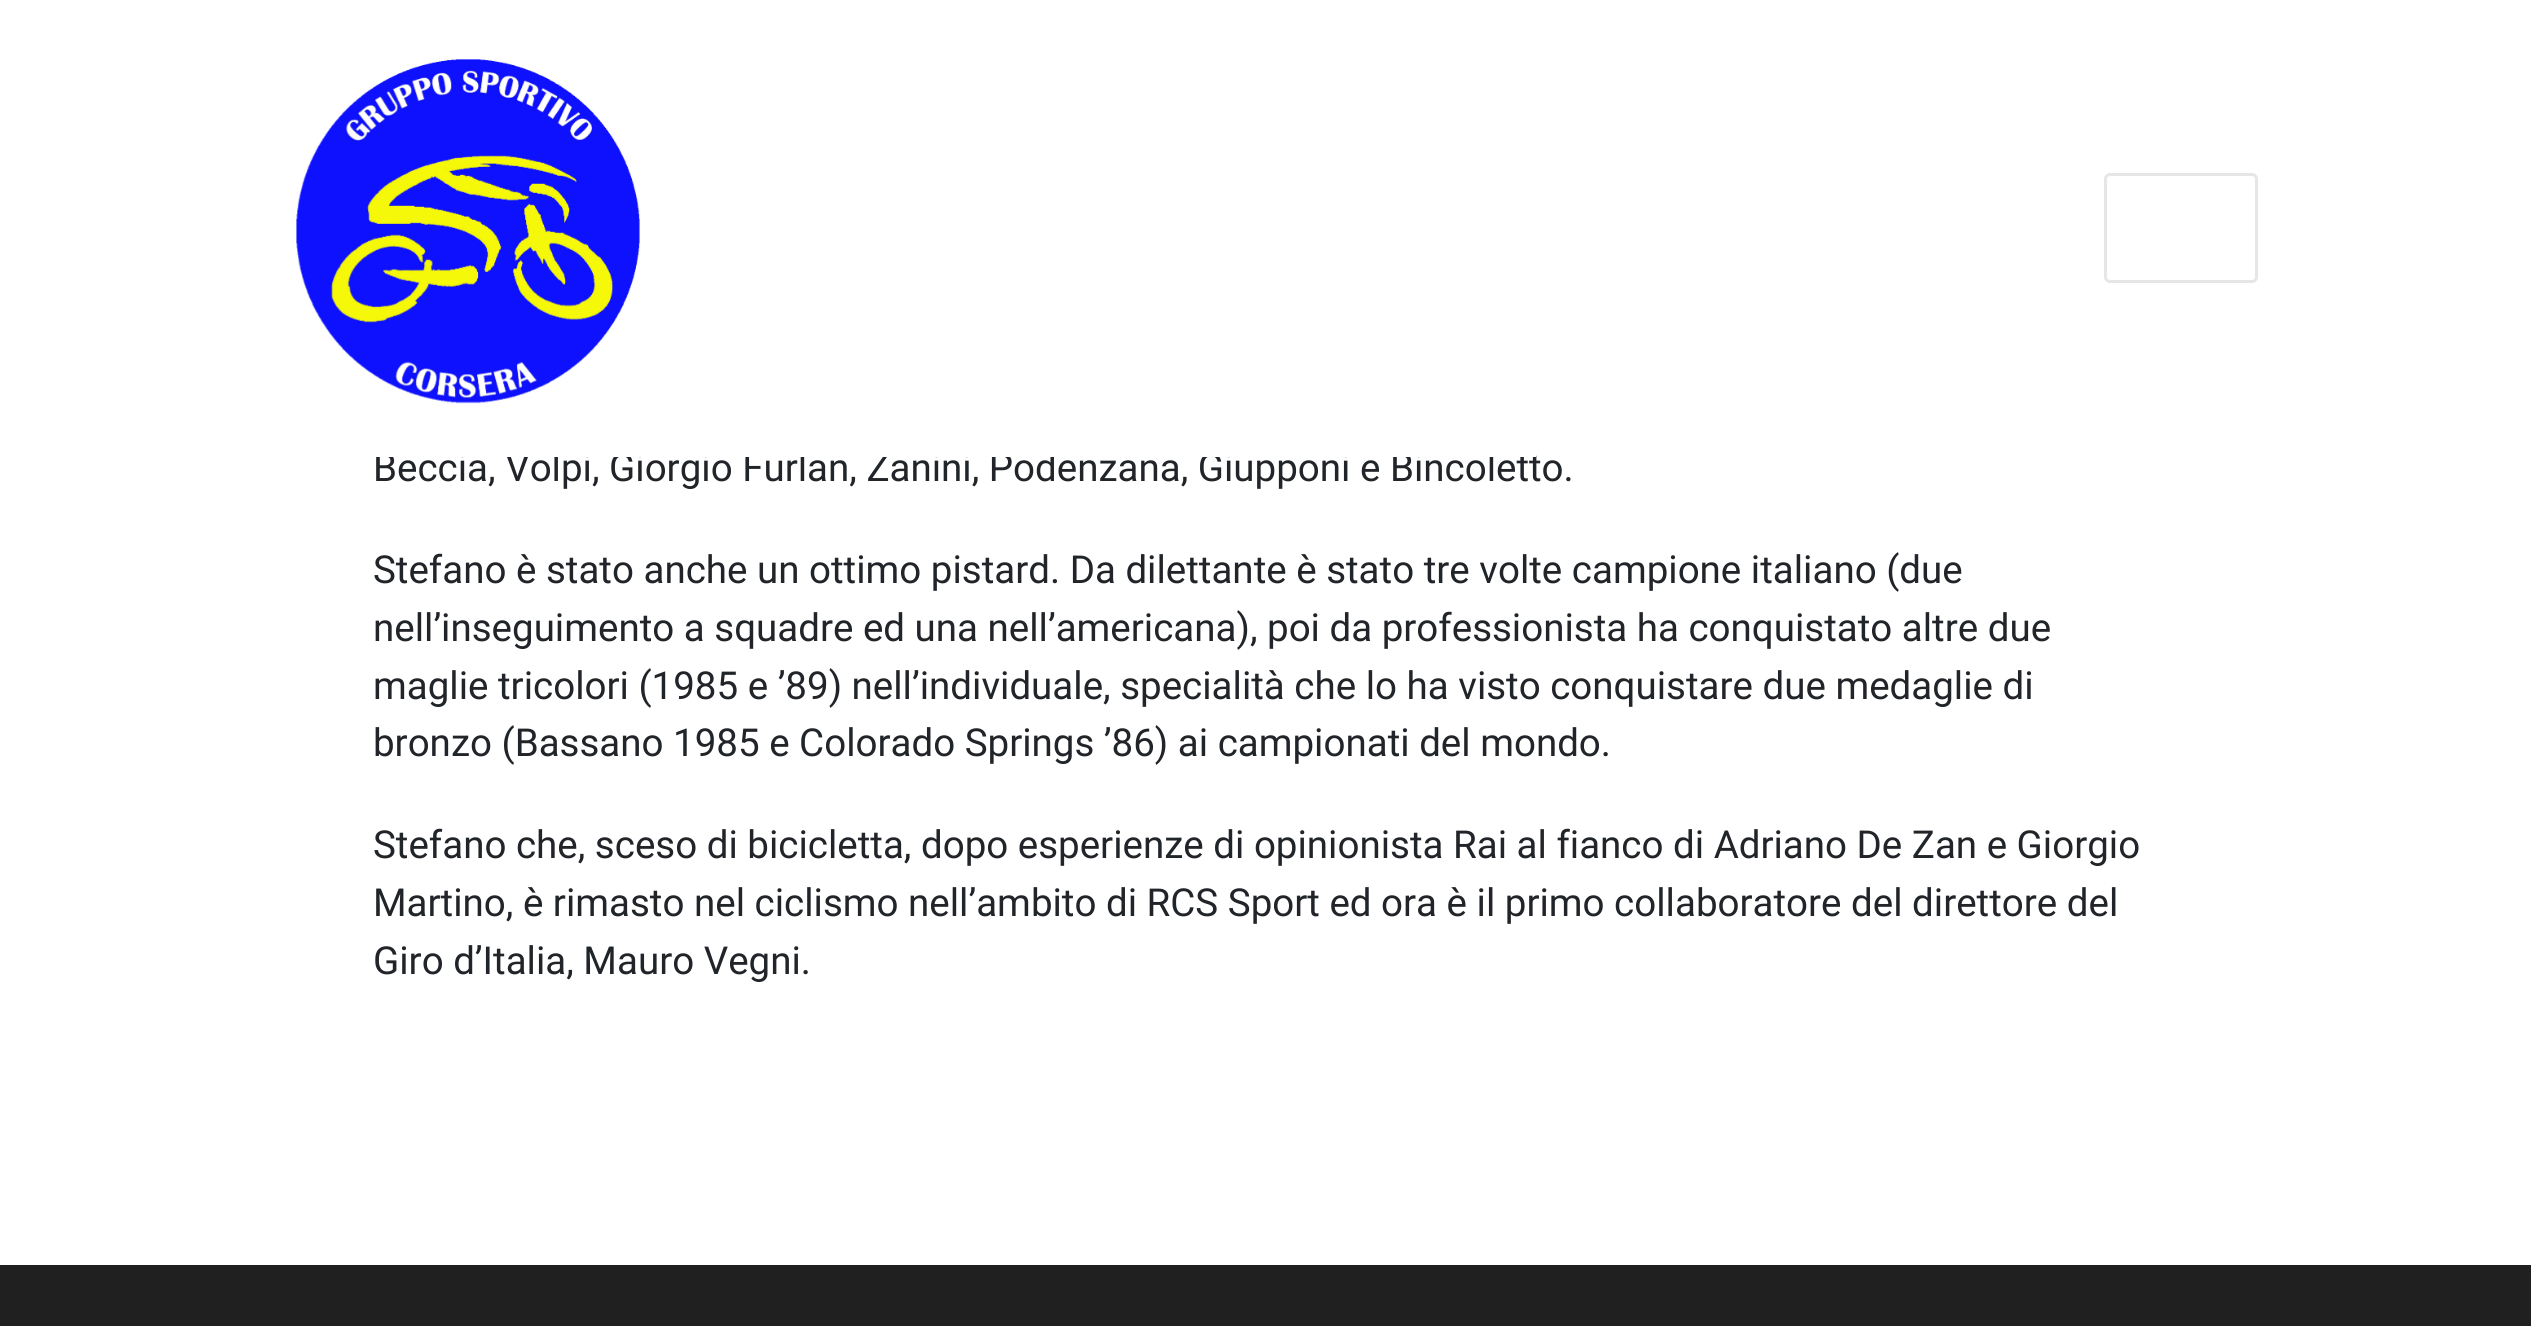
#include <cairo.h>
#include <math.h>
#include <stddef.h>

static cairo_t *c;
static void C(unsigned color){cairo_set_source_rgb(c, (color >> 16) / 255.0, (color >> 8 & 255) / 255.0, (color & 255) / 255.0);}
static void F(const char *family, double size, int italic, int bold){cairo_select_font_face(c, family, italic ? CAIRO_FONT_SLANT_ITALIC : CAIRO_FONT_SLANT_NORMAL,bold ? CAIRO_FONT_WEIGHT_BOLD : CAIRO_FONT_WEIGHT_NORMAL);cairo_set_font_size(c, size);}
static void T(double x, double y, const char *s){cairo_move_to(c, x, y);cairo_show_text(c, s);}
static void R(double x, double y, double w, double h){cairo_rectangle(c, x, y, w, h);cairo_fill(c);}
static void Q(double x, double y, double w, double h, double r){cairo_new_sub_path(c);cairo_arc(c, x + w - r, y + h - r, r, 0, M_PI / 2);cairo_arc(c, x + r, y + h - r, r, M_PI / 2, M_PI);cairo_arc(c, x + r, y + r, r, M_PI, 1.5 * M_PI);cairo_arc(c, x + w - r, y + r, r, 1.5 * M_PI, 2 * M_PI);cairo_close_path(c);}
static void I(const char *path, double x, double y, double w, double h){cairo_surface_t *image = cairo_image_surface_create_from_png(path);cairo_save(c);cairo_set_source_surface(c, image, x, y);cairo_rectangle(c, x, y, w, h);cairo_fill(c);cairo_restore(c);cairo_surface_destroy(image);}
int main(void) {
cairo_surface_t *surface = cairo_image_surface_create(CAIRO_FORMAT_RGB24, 2531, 1326);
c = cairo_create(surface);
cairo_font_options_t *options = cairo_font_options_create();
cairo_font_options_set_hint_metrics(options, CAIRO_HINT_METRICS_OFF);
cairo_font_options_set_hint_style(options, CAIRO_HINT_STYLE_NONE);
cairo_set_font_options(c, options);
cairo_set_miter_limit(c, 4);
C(0xffffff);
cairo_paint(c);
F("Roboto",38.5,0,0);
C(0x212529);
T(373,481,"Beccia, Volpi, Giorgio Furlan, Zanini, Podenzana, Giupponi e Bincoletto.");
C(0xffffff);
R(375,452,1161,5);
I("1.png",296,59,344,345);
Q(2105.5,174.5,151,107,4.5);
C(0xe6e6e6);
cairo_set_line_width(c,3);
cairo_stroke(c);
C(0x212529);
T(373,583,"Stefano è stato anche un ottimo pistard. Da dilettante è stato tre volte campione italiano (due");
T(373,641,"nell’inseguimento a squadre ed una nell’americana), poi da professionista ha conquistato altre due");
T(373,699,"maglie tricolori (1985 e ’89) nell’individuale, specialità che lo ha visto conquistare due medaglie di");
T(373,756,"bronzo (Bassano 1985 e Colorado Springs ’86) ai campionati del mondo.");
T(373,858,"Stefano che, sceso di bicicletta, dopo esperienze di opinionista Rai al fianco di Adriano De Zan e Giorgio");
T(373,916,"Martino, è rimasto nel ciclismo nell’ambito di RCS Sport ed ora è il primo collaboratore del direttore del");
T(373,974,"Giro d’Italia, Mauro Vegni.");
C(0x202020);
R(0,1265,2531,61);
cairo_surface_write_to_png(surface, "o.png");
cairo_font_options_destroy(options);
cairo_destroy(c);
cairo_surface_destroy(surface);
return 0;
}
